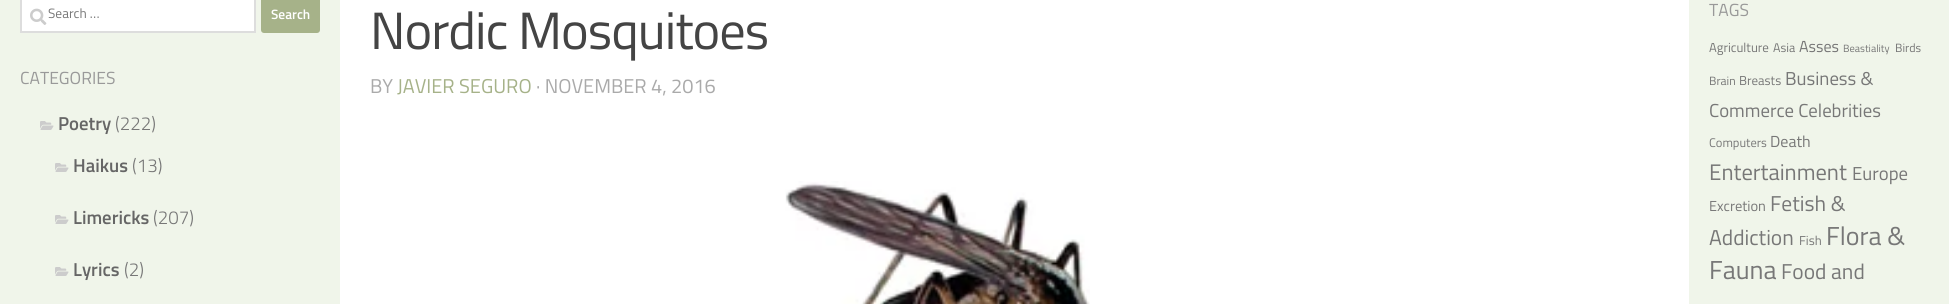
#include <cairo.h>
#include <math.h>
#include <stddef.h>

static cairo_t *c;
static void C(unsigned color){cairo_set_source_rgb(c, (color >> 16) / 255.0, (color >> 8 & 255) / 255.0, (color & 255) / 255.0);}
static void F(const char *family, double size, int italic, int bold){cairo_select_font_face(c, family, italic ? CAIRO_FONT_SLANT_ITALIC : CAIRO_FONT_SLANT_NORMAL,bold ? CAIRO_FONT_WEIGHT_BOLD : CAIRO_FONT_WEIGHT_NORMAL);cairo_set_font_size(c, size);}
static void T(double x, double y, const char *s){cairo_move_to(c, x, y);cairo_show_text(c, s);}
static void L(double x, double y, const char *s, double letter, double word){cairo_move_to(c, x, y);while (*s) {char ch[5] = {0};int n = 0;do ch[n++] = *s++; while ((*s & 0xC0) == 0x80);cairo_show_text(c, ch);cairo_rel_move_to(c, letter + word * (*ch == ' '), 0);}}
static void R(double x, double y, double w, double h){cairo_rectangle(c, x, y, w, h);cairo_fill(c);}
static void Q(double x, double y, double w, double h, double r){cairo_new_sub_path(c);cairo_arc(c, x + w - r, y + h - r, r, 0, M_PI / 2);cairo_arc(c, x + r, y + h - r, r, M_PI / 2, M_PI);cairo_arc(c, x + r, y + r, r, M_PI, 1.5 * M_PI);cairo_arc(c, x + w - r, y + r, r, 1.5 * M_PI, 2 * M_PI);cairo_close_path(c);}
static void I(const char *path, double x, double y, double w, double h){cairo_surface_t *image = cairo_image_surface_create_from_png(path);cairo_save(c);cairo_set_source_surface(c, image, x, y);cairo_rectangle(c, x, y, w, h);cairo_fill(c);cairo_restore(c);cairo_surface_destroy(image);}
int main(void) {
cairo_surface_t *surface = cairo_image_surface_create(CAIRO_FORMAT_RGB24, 1949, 304);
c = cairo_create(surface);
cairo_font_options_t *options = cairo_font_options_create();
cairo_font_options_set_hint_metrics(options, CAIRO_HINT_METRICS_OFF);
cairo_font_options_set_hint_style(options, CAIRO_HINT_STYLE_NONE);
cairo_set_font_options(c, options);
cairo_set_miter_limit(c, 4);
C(0xf0f5ea);
cairo_paint(c);
C(0xffffff);
cairo_rectangle(c,21,-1,234,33);
cairo_fill_preserve(c);
C(0xdddddd);
cairo_stroke(c);
I("1.png",30,8,17,17);
F("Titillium",13.5,0,0);
C(0x777777);
T(48,18,"Search …");
C(0xa6b289);
Q(261,-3,59,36,3);
cairo_fill(c);
F("Titillium SemiBold",13.5,0,0);
C(0xffffff);
T(271,19,"Search");
F("Titillium",17.5,0,0);
C(0x999999);
T(20,84,"CATEGORIES");
I("2.png",40,121,14,9);
F("Titillium SemiBold",18.75,0,0);
C(0x666666);
T(58,130,"Poetry");
F("Titillium Light",18.75,0,0);
C(0x777777);
T(115,130,"(222)");
I("2.png",55,163,14,9);
F("Titillium SemiBold",18.75,0,0);
C(0x666666);
T(73,172,"Haikus");
F("Titillium Light",18.75,0,0);
C(0x777777);
T(132,172,"(13)");
I("2.png",55,215,14,9);
F("Titillium SemiBold",18.75,0,0);
C(0x666666);
T(73,224,"Limericks");
F("Titillium Light",18.75,0,0);
C(0x777777);
T(153,224,"(207)");
I("2.png",55,267,14,9);
F("Titillium SemiBold",18.75,0,0);
C(0x666666);
T(73,276,"Lyrics");
F("Titillium Light",18.75,0,0);
C(0x777777);
T(124,276,"(2)");
C(0xffffff);
R(340,0,1349,304);
F("Titillium",52.5,0,0);
C(0x444444);
L(370,49,"Nordic Mosquitoes",-1,0);
F("Titillium",20,0,0);
C(0xaaaaaa);
T(370,93,"BY");
C(0xa6b289);
T(397,93,"JAVIER SEGURO");
C(0xaaaaaa);
T(536,93,"· NOVEMBER 4, 2016");
I("3.png",785,181,305,123);
F("Titillium",17.5,0,0);
C(0x999999);
T(1709,16,"TAGS");
F("Titillium",13,0,0);
C(0x777777);
T(1709,52,"Agriculture");
F("Titillium",12.5,0,0);
T(1773,52,"Asia");
F("Titillium",16,0,0);
T(1799,52,"Asses");
F("Titillium",10.5,0,0);
T(1843,52,"Beastiality");
F("Titillium",12,0,0);
T(1895,52,"Birds");
T(1709,85,"Brain");
F("Titillium",13,0,0);
T(1739,85,"Breasts");
F("Titillium",18.75,0,0);
T(1785,85,"Business &");
T(1709,117,"Commerce Celebrities");
F("Titillium",12.5,0,0);
T(1709,147,"Computers");
F("Titillium",16,0,0);
T(1770,147,"Death");
F("Titillium",22.5,0,0);
T(1709,180,"Entertainment");
F("Titillium",18.75,0,0);
T(1852,180,"Europe");
F("Titillium",14.5,0,0);
T(1709,211,"Excretion");
F("Titillium",21.5,0,0);
T(1770,211,"Fetish &");
T(1709,245,"Addiction");
F("Titillium",13,0,0);
T(1799,245,"Fish");
F("Titillium",26,0,0);
T(1826,245,"Flora &");
T(1709,279,"Fauna");
F("Titillium",21.5,0,0);
T(1781,279,"Food and");
cairo_surface_write_to_png(surface, "o.png");
cairo_font_options_destroy(options);
cairo_destroy(c);
cairo_surface_destroy(surface);
return 0;
}
